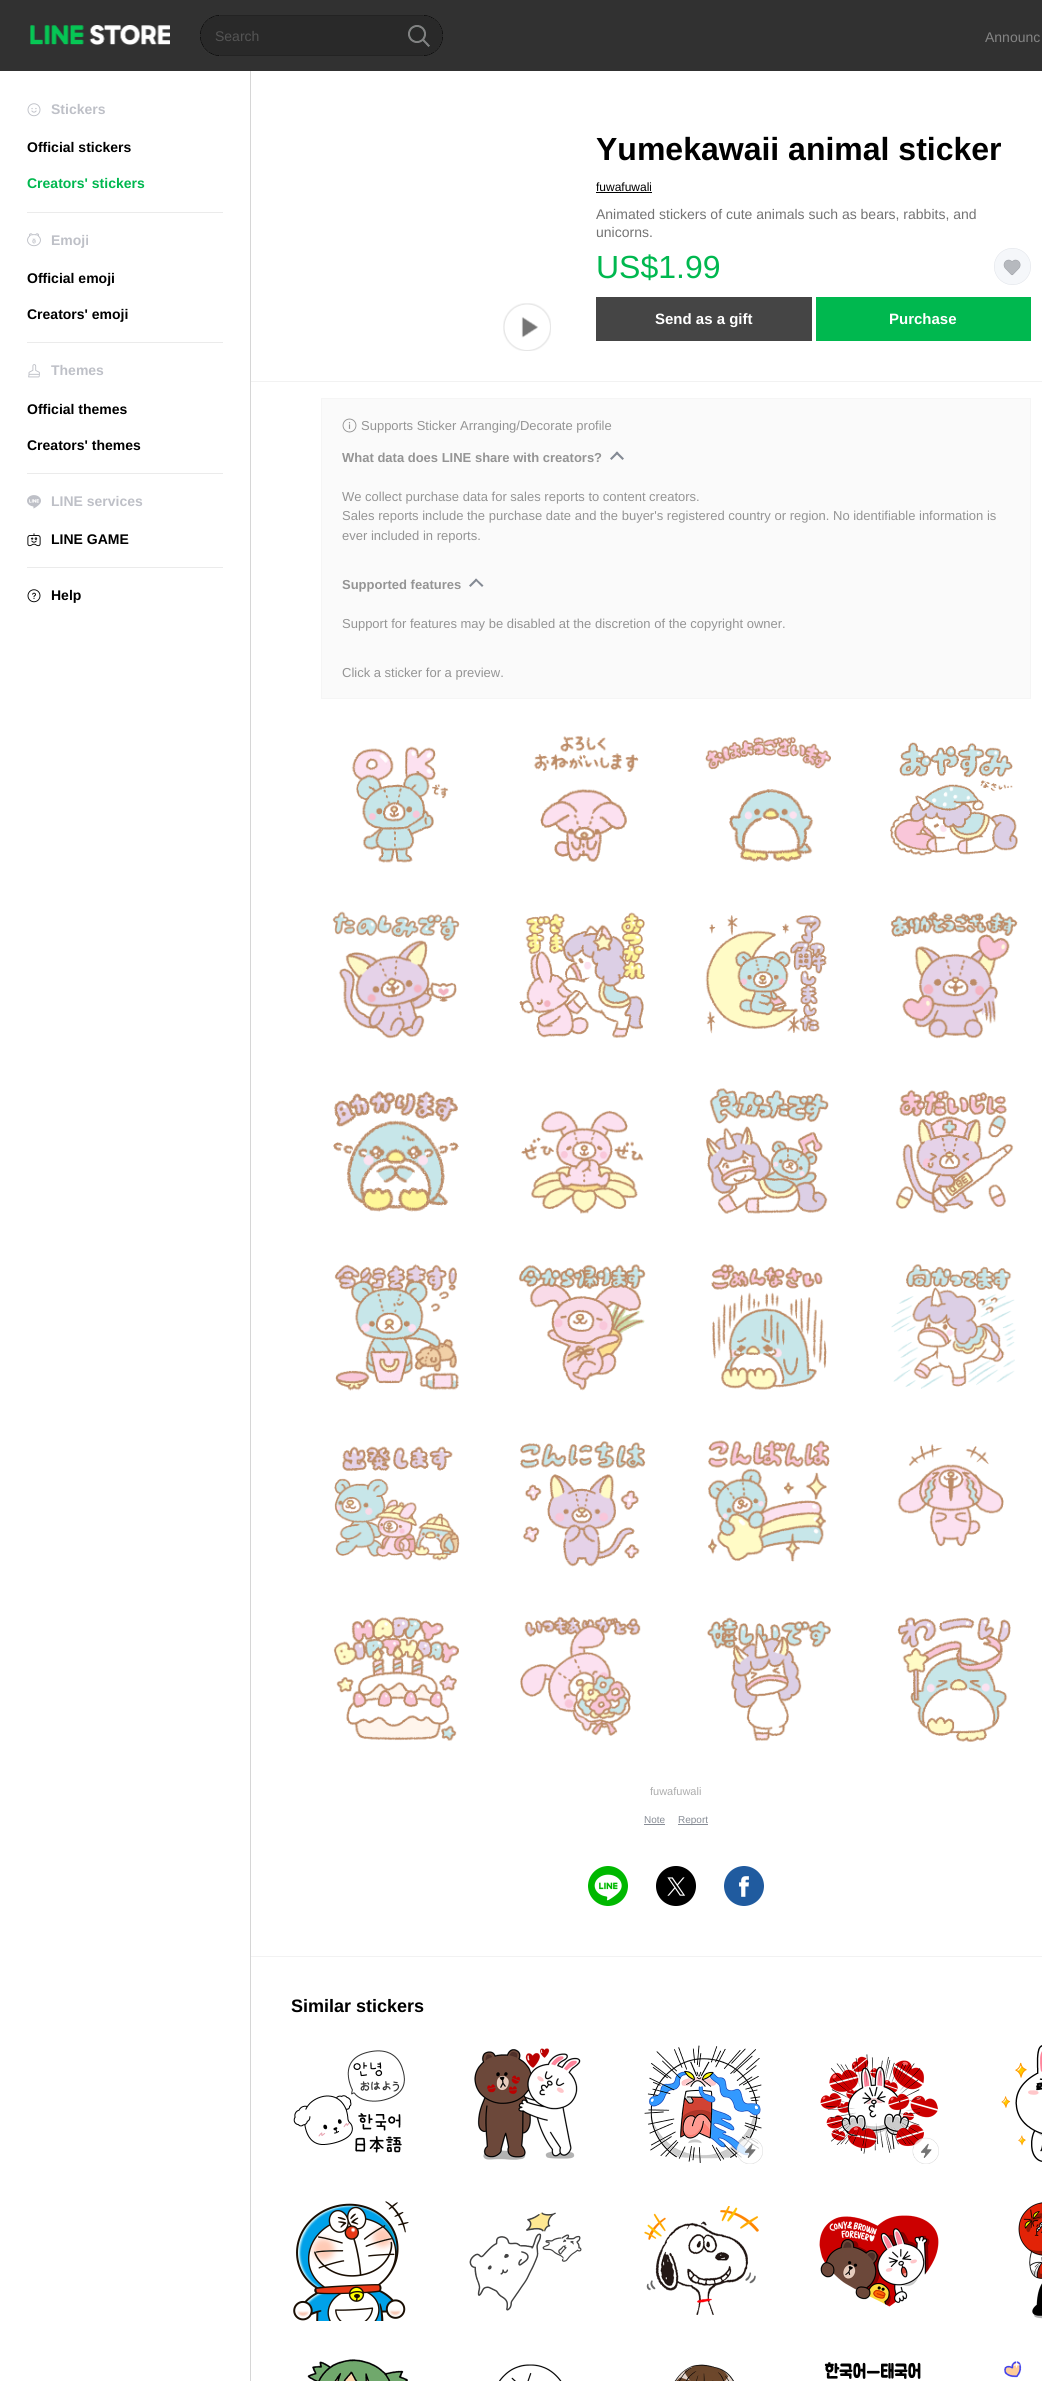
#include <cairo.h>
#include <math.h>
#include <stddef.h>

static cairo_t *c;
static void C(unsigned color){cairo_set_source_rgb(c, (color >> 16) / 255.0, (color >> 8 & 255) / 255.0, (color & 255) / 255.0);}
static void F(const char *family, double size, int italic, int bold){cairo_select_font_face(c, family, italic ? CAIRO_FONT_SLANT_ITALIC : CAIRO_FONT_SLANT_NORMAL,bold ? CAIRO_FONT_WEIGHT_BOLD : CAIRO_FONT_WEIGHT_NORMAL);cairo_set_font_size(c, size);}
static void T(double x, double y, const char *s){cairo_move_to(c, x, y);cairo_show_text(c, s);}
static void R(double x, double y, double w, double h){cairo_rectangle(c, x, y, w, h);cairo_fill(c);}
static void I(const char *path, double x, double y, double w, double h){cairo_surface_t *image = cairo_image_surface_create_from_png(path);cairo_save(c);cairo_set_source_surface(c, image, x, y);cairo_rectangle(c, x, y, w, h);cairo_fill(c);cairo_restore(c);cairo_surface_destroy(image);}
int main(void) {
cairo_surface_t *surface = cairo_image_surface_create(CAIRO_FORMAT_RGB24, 1042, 2381);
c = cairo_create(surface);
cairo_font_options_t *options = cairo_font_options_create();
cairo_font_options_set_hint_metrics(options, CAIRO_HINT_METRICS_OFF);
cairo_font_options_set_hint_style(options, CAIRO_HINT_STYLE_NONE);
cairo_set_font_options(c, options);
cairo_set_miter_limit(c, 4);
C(0xffffff);
cairo_paint(c);
C(0x313131);
R(0,0,1042,71);
I("1.png",30,25,140,20);
I("2.png",200,15,243,41);
F("Liberation Sans",14,0,0);
C(0x545454);
T(215,41,"Search");
I("3.png",408,25,22,22);
C(0x848484);
T(985,42,"Announc");
I("4.png",27,103,14,14);
F("Liberation Sans",14,0,1);
C(0xbec0c7);
T(51,114,"Stickers");
C(0x000000);
T(27,152,"Official stickers");
C(0x00b84f);
T(27,188,"Creators' stickers");
C(0xebebeb);
R(27,212,196,1);
I("5.png",27,233,14,14);
C(0xbec0c7);
T(51,245,"Emoji");
C(0x000000);
T(27,283,"Official emoji");
T(27,319,"Creators' emoji");
C(0xebebeb);
R(27,342,196,1);
I("6.png",28,364,12,14);
C(0xbec0c7);
T(51,375,"Themes");
C(0x000000);
T(27,414,"Official themes");
T(27,450,"Creators' themes");
C(0xebebeb);
R(27,473,196,1);
I("7.png",27,495,14,14);
C(0xbec0c7);
T(51,506,"LINE services");
I("8.png",27,533,14,14);
C(0x000000);
T(51,544,"LINE GAME");
C(0xebebeb);
R(27,567,196,1);
I("9.png",27,589,14,14);
C(0x000000);
T(51,600,"Help");
C(0xd6d6d6);
R(250,71,1,2310);
I("10.png",503,303,48,48);
F("Liberation Sans",32,0,1);
C(0x000000);
T(596,160,"Yumekawaii animal sticker");
F("Liberation Sans",12,0,0);
T(596,191,"fuwafuwali");
R(596,192,56,1);
F("Liberation Sans",14,0,0);
C(0x737373);
T(596,219,"Animated stickers of cute animals such as bears, rabbits, and");
T(596,237,"unicorns.");
F("Liberation Sans",32,0,0);
C(0x00b84f);
T(596,278,"US$1.99");
I("11.png",994,248,37,37);
C(0x454545);
R(596,297,216,44);
F("Liberation Sans",15,0,1);
C(0xffffff);
T(655,324,"Send as a gift");
C(0x00b84f);
R(816,297,215,44);
C(0xffffff);
T(889,324,"Purchase");
C(0xf2f2f2);
R(251,381,791,1);
C(0xfafafa);
cairo_rectangle(c,321.5,398.5,709,300);
cairo_fill_preserve(c);
C(0xf5f5f5);
cairo_set_line_width(c,1);
cairo_stroke(c);
I("12.png",342,418,15,15);
F("Liberation Sans",13,0,0);
C(0x949494);
T(361,430,"Supports Sticker Arranging/Decorate profile");
F("Liberation Sans",13,0,1);
T(342,462,"What data does LINE share with creators?");
C(0x848a94);
cairo_new_path(c);
cairo_move_to(c,610,458.5);
cairo_line_to(c,617,451.5);
cairo_line_to(c,618.5,453);
cairo_line_to(c,611.5,460);
cairo_close_path(c);
cairo_fill(c);
cairo_new_path(c);
cairo_move_to(c,615.5,453);
cairo_line_to(c,617,451.5);
cairo_line_to(c,624,458.5);
cairo_line_to(c,622.5,460);
cairo_close_path(c);
cairo_fill(c);
F("Liberation Sans",13,0,0);
C(0x949494);
T(342,501,"We collect purchase data for sales reports to content creators.");
T(342,520,"Sales reports include the purchase date and the buyer's registered country or region. No identifiable information is");
T(342,540,"ever included in reports.");
F("Liberation Sans",13,0,1);
T(342,589,"Supported features");
C(0x848a94);
cairo_new_path(c);
cairo_move_to(c,469,585.5);
cairo_line_to(c,476,578.5);
cairo_line_to(c,477.5,580);
cairo_line_to(c,470.5,587);
cairo_close_path(c);
cairo_fill(c);
cairo_new_path(c);
cairo_move_to(c,475,580);
cairo_line_to(c,476,578.5);
cairo_line_to(c,483.5,585.5);
cairo_line_to(c,482,587);
cairo_close_path(c);
cairo_fill(c);
F("Liberation Sans",13,0,0);
C(0x949494);
T(342,628,"Support for features may be disabled at the discretion of the copyright owner.");
T(342,677,"Click a sticker for a preview.");
I("13.png",351,746,98,117);
I("14.png",533,735,106,127);
I("15.png",705,736,126,126);
I("16.png",890,742,128,114);
I("17.png",332,911,128,128);
I("18.png",519,912,126,126);
I("19.png",705,915,122,119);
I("20.png",890,911,128,128);
I("21.png",333,1091,126,121);
I("22.png",521,1110,123,104);
I("23.png",706,1088,123,126);
I("24.png",895,1089,119,125);
I("25.png",334,1263,125,128);
I("26.png",518,1264,128,127);
I("27.png",711,1264,116,126);
I("28.png",891,1264,125,125);
I("29.png",334,1446,126,115);
I("30.png",520,1441,126,126);
I("31.png",708,1440,122,122);
I("32.png",897,1444,107,103);
I("33.png",333,1616,126,125);
I("34.png",520,1616,121,120);
I("35.png",707,1617,124,124);
I("36.png",897,1617,114,126);
F("Liberation Sans",11,0,0);
C(0xadadad);
T(650,1795,"fuwafuwali");
F("Liberation Sans",10,0,0);
C(0x878c95);
T(644,1823,"Note");
R(644,1824,21,1);
R(678,1824,30,1);
T(678,1823,"Report");
I("37.png",588,1866,40,40);
I("38.png",656,1866,40,40);
I("39.png",724,1866,40,40);
C(0xf2f2f2);
R(251,1956,791,1);
F("Liberation Sans",18,0,1);
C(0x000000);
T(291,2012,"Similar stickers");
I("40.png",293,2050,112,103);
I("41.png",474,2048,107,112);
I("42.png",644,2045,118,118);
I("43.png",736,2137,27,27);
I("44.png",820,2054,118,100);
I("45.png",912,2137,27,27);
I("46.png",1001,2045,41,117);
I("47.png",293,2201,116,120);
I("48.png",469,2212,113,99);
I("49.png",644,2206,115,109);
I("50.png",819,2215,120,92);
I("51.png",1018,2202,24,117);
I("52.png",307,2359,101,22);
I("53.png",499,2364,63,17);
I("54.png",674,2364,60,17);
I("55.png",824,2362,97,17);
I("56.png",1004,2361,18,17);
cairo_surface_write_to_png(surface, "o.png");
cairo_font_options_destroy(options);
cairo_destroy(c);
cairo_surface_destroy(surface);
return 0;
}
